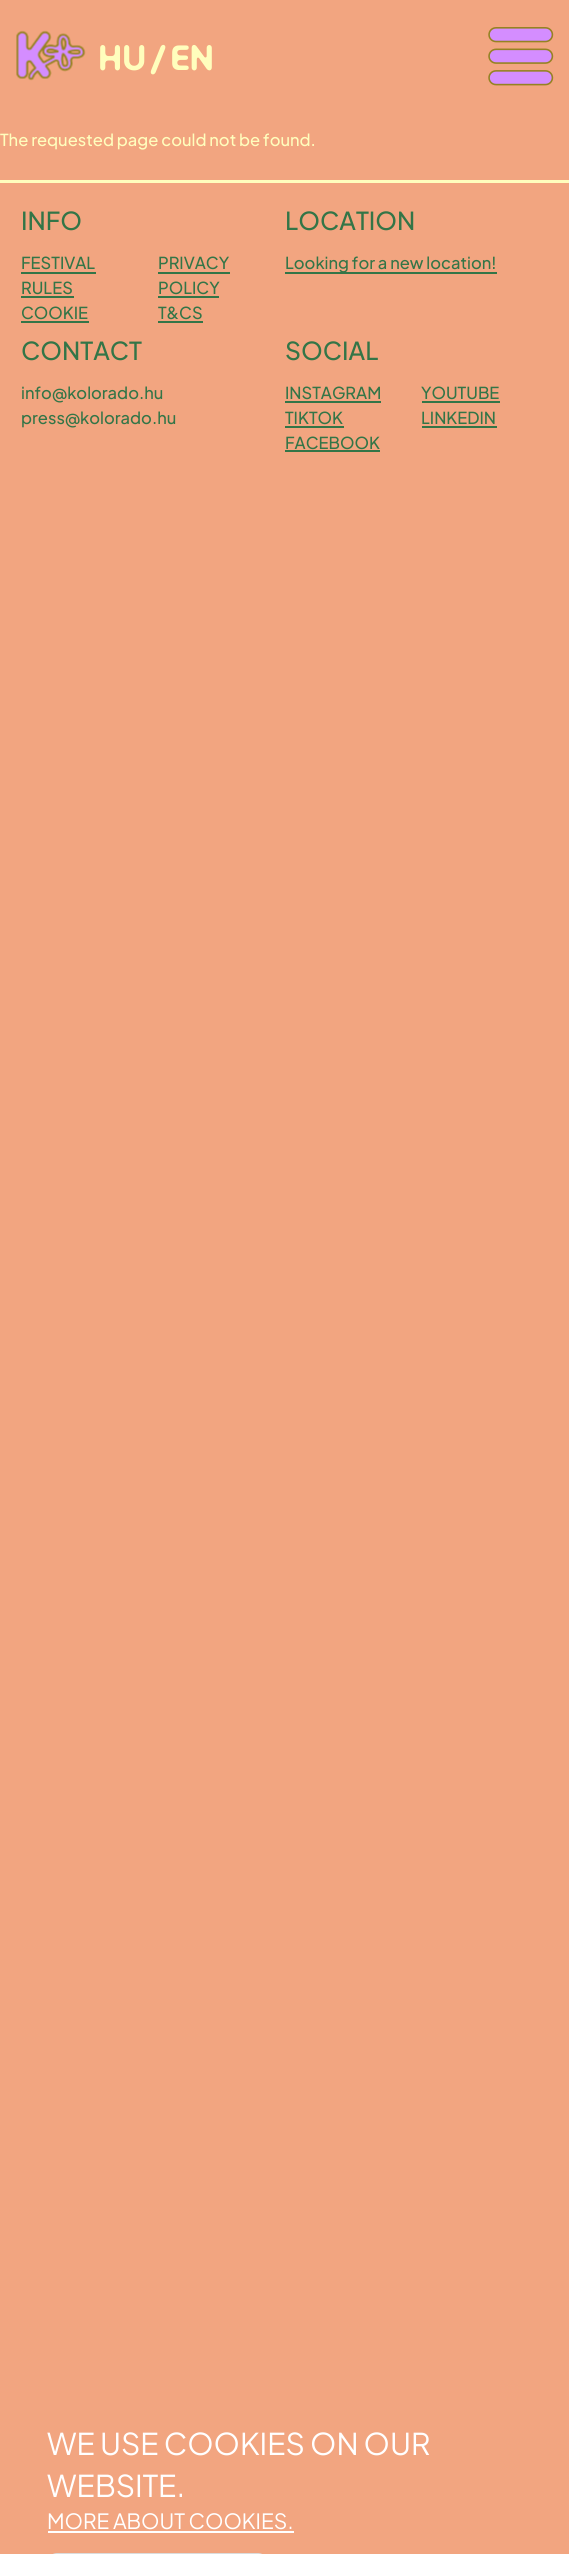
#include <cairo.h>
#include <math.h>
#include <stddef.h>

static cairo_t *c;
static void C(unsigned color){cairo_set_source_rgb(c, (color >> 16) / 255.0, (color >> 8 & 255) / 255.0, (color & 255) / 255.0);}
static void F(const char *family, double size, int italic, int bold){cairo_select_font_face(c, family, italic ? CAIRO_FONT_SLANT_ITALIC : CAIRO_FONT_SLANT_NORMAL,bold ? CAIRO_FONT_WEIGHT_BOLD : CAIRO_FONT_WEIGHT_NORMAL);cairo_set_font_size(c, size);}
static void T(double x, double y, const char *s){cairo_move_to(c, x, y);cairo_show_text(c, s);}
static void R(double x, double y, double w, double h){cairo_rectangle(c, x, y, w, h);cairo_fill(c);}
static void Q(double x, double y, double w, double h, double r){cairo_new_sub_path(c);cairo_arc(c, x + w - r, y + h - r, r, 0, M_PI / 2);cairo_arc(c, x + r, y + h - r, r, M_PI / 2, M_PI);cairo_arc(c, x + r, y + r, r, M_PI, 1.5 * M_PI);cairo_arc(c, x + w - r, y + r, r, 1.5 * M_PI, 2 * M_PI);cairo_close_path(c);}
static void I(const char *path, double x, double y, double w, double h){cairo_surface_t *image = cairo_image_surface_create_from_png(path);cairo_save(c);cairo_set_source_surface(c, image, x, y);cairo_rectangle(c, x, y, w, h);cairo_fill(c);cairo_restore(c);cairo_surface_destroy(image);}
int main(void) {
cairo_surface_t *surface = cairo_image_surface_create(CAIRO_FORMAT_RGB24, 569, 2554);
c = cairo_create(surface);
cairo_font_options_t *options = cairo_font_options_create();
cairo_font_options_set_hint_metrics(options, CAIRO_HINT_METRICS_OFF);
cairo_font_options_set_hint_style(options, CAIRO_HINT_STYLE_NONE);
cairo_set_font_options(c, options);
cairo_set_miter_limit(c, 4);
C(0xf2a580);
cairo_paint(c);
I("1.png",16,30,70,51);
F("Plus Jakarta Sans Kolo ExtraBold",33,0,0);
C(0xfffebd);
T(98,70,"HU");
T(149,70,"/");
T(170,70,"EN");
I("2.png",488,27,66,59);
F("Plus Jakarta Sans Medium",16.5,0,0);
T(0,146,"The requested page could not be found.");
R(0,180,569,3);
F("Plus Jakarta Sans Medium",24.75,0,0);
C(0x337547);
T(21,230,"INFO");
F("Plus Jakarta Sans Medium",16.5,0,0);
T(21,269,"FESTIVAL");
R(21,272,75,2);
T(21,294,"RULES");
R(21,296,53,2);
T(158,269,"PRIVACY");
R(158,272,72,2);
T(158,294,"POLICY");
R(158,296,61,2);
T(21,319,"COOKIE");
R(21,321,68,2);
T(158,319,"T&CS");
R(158,321,45,2);
F("Plus Jakarta Sans Medium",24.75,0,0);
T(285,230,"LOCATION");
R(285,272,212,2);
F("Plus Jakarta Sans Medium",16.5,0,0);
T(285,269,"Looking for a new location!");
F("Plus Jakarta Sans Medium",24.75,0,0);
T(21,360,"CONTACT");
F("Plus Jakarta Sans Medium",16.5,0,0);
T(21,399,"info@kolorado.hu");
T(21,424,"press@kolorado.hu");
F("Plus Jakarta Sans Medium",24.75,0,0);
T(285,360,"SOCIAL");
F("Plus Jakarta Sans Medium",16.5,0,0);
T(285,399,"INSTAGRAM");
R(285,401,96,2);
T(421,399,"YOUTUBE");
R(422,401,78,2);
T(285,424,"TIKTOK");
R(285,426,59,2);
T(421,424,"LINKEDIN");
R(422,426,75,2);
T(285,449,"FACEBOOK");
R(285,450,95,2);
F("Plus Jakarta Sans",30,0,0);
C(0xffffff);
T(47,2455,"WE USE COOKIES ON OUR");
T(47,2497,"WEBSITE.");
F("Plus Jakarta Sans",21,0,0);
T(47,2529,"MORE ABOUT COOKIES.");
R(48,2531,246,2);
Q(49,2554,217,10,8);
C(0xdcdcdc);
cairo_stroke(c);
cairo_surface_write_to_png(surface, "o.png");
cairo_font_options_destroy(options);
cairo_destroy(c);
cairo_surface_destroy(surface);
return 0;
}
